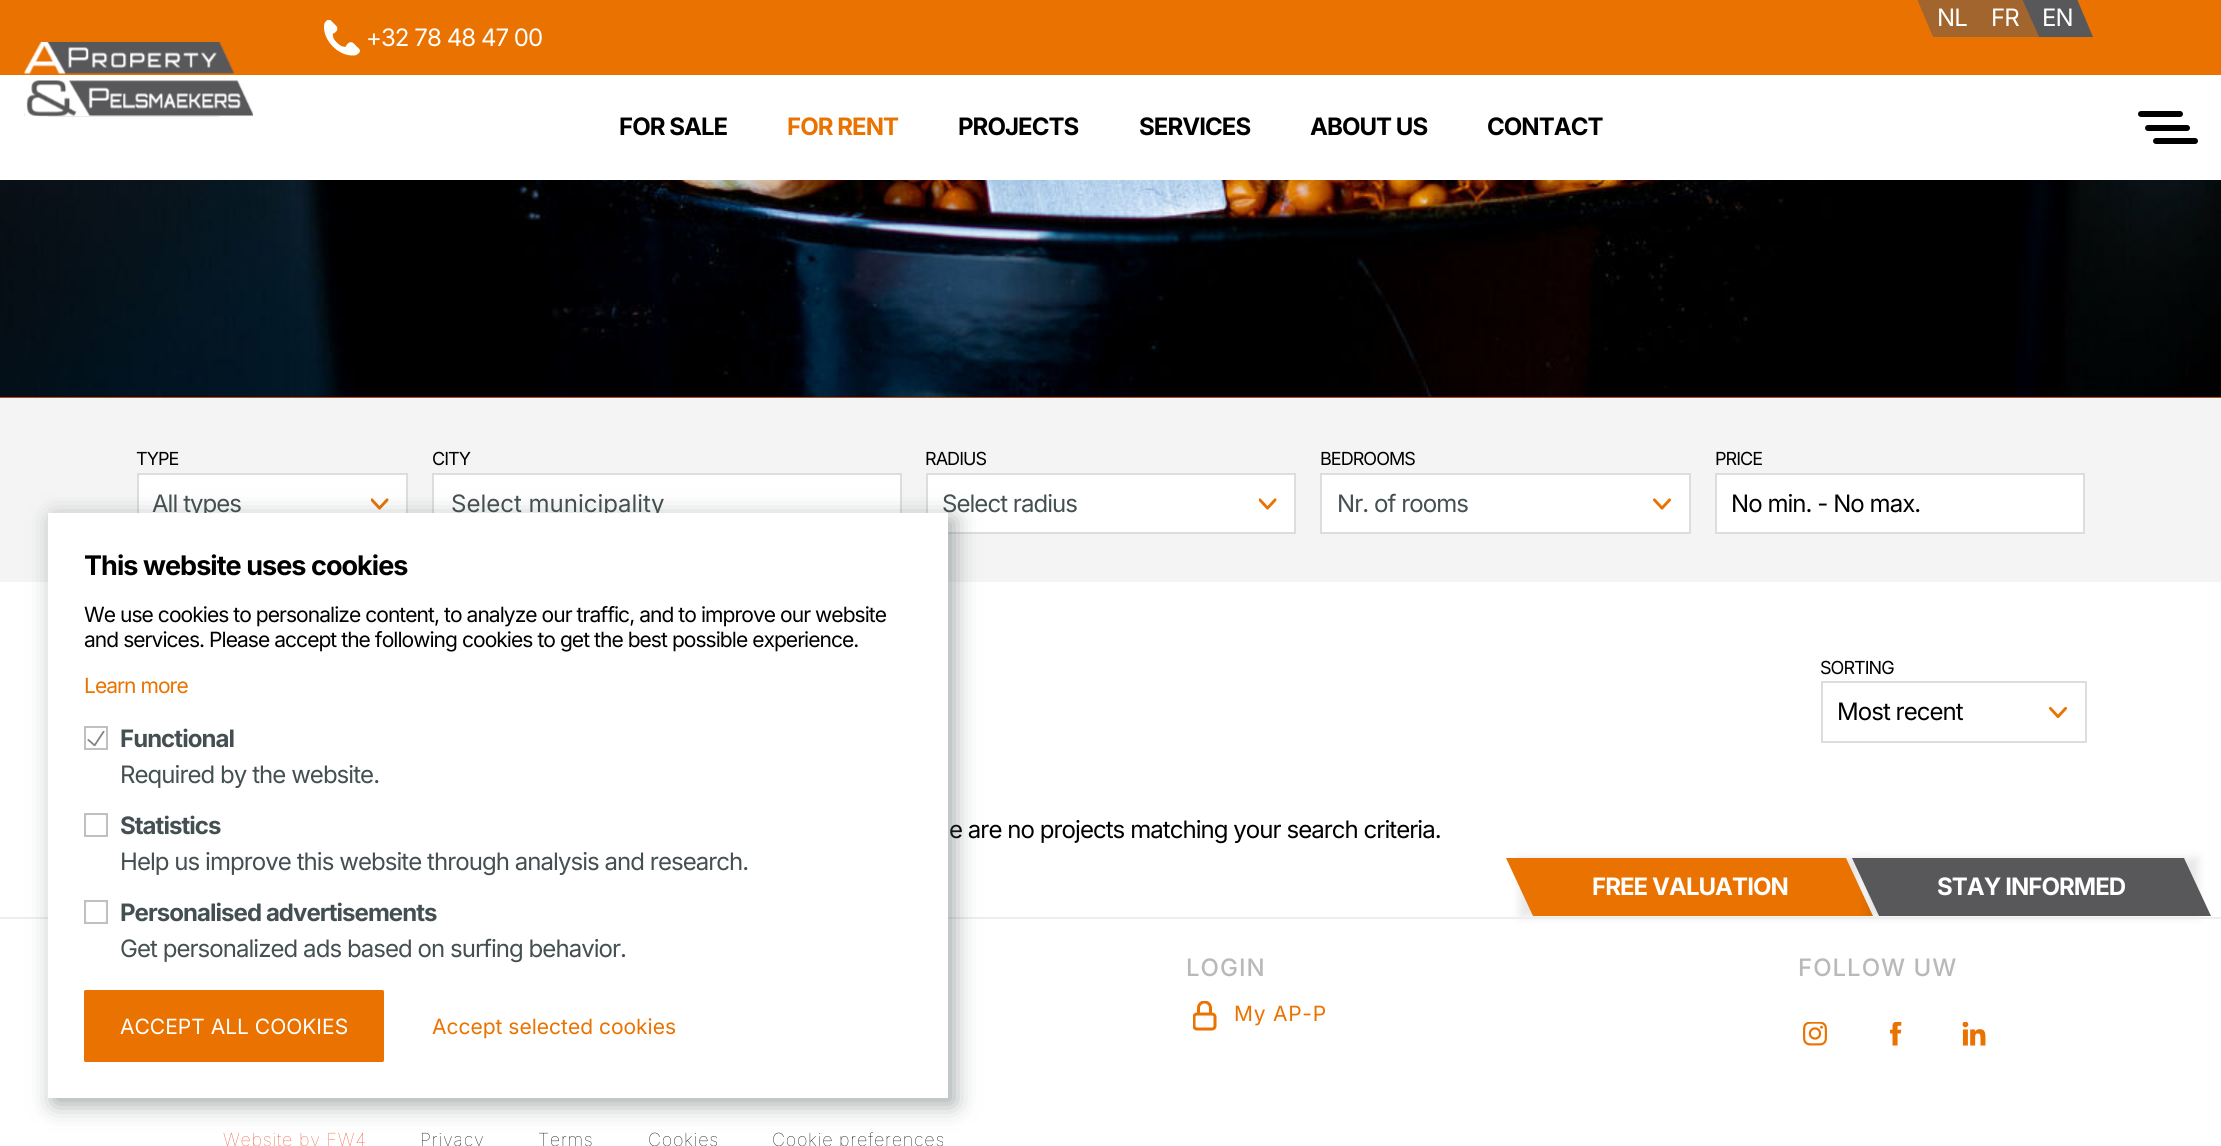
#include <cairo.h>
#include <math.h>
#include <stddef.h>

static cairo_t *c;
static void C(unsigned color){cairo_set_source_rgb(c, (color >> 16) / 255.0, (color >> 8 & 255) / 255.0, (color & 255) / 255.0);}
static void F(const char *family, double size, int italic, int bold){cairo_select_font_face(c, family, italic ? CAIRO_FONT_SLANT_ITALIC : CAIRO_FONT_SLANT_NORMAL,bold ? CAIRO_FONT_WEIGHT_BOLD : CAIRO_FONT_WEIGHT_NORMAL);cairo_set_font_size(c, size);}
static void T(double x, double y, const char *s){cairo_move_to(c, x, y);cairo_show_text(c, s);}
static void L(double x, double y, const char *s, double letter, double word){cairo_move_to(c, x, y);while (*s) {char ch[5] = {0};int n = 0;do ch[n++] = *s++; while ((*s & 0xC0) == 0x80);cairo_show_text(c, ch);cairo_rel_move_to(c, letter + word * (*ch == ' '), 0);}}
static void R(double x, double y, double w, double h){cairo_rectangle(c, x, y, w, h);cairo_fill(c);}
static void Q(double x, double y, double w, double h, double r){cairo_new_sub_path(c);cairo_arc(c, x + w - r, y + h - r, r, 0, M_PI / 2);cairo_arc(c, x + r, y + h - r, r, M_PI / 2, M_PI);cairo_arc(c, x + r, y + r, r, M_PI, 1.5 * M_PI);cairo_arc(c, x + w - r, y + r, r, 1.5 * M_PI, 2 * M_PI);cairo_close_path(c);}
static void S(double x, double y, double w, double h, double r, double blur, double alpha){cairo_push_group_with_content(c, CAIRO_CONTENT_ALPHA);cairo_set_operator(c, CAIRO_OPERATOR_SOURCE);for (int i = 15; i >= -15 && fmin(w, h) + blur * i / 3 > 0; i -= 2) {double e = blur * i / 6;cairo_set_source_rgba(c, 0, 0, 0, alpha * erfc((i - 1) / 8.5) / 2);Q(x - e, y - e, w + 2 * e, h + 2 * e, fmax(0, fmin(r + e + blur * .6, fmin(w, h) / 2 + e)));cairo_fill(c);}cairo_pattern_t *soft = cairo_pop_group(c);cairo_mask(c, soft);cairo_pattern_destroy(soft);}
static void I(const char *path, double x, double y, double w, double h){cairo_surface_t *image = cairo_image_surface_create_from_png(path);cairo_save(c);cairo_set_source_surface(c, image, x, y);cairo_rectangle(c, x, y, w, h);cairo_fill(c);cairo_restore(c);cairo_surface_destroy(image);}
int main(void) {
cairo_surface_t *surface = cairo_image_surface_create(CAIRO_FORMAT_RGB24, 2221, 1146);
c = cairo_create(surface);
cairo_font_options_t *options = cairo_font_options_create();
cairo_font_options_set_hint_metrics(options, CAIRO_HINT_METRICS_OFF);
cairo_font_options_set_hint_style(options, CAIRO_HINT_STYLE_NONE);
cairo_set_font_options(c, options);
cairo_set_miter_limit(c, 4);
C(0xffffff);
cairo_paint(c);
C(0xea7200);
R(0,0,2221,75);
C(0xa1652d);
cairo_new_path(c);
cairo_move_to(c,1917,-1);
cairo_line_to(c,1970,-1);
cairo_line_to(c,1987,37);
cairo_line_to(c,1933,37);
cairo_close_path(c);
cairo_fill(c);
F("Inter",24,0,0);
C(0xffffff);
L(1937,26,"NL",-.95,0);
cairo_set_source_rgba(c,0.345,0.345,0.353,0.5);
cairo_new_path(c);
cairo_move_to(c,1970,-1);
cairo_line_to(c,2022,-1);
cairo_line_to(c,2039,37);
cairo_line_to(c,1987,37);
cairo_close_path(c);
cairo_fill(c);
C(0xffffff);
L(1991,26,"FR",-.95,0);
C(0x58585a);
cairo_new_path(c);
cairo_move_to(c,2022,-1);
cairo_line_to(c,2077,-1);
cairo_line_to(c,2093,37);
cairo_line_to(c,2039,37);
cairo_close_path(c);
cairo_fill(c);
C(0xffffff);
L(2042,26,"EN",-.95,0);
I("1.png",324,20,36,36);
L(366,46,"+32 78 48 47 00",-.95,0);
I("2.png",24,42,230,75);
F("Inter",24,0,1);
C(0x000000);
L(619,135,"FOR SALE",-.95,0);
C(0xea7200);
L(787,135,"FOR RENT",-.95,0);
C(0x000000);
L(958,135,"PROJECTS",-.95,0);
L(1139,135,"SERVICES",-.95,0);
L(1310,135,"ABOUT US",-.95,0);
L(1487,135,"CONTACT",-.95,0);
Q(2138,111,45,6,3);
cairo_fill(c);
Q(2145,125,45,6,3);
cairo_fill(c);
Q(2153,138,45,6,3);
cairo_fill(c);
C(0xb44d12);
R(0,397,2221,1);
I("3.png",0,180,2221,217);
C(0xf4f4f4);
R(0,398,2221,184);
F("Inter",18,0,0);
C(0x000000);
L(136,465,"TYPE",-.95,0);
C(0xffffff);
R(139,475,267,38);
I("4.png",371,498,18,12);
cairo_rectangle(c,138,474,269,59);
C(0xdddddd);
cairo_stroke(c);
F("Inter",24,0,0);
C(0x444f51);
L(152,512,"All types",-.95,0);
F("Inter",18,0,0);
C(0x000000);
L(432,465,"CITY",-.95,0);
C(0xffffff);
R(434,475,466,38);
cairo_rectangle(c,433,474,468,59);
C(0xdddddd);
cairo_stroke(c);
F("Inter",24,0,0);
C(0x444f51);
T(451,512,"Select municipality");
F("Inter",18,0,0);
C(0x000000);
L(925,465,"RADIUS",-.95,0);
C(0xffffff);
R(928,475,366,57);
I("4.png",1259,498,18,12);
cairo_rectangle(c,927,474,368,59);
C(0xdddddd);
cairo_stroke(c);
F("Inter",24,0,0);
C(0x444f51);
L(942,512,"Select radius",-.95,0);
F("Inter",18,0,0);
C(0x000000);
L(1320,465,"BEDROOMS",-.95,0);
C(0xffffff);
R(1322,475,367,57);
I("5.png",1653,498,18,12);
cairo_rectangle(c,1321,474,369,59);
C(0xdddddd);
cairo_stroke(c);
F("Inter",24,0,0);
C(0x444f51);
L(1337,512,"Nr. of rooms",-.95,0);
F("Inter",18,0,0);
C(0x000000);
L(1715,465,"PRICE",-.95,0);
C(0xffffff);
cairo_rectangle(c,1716,474,368,59);
cairo_fill_preserve(c);
C(0xdddddd);
cairo_stroke(c);
F("Inter",24,0,0);
C(0x000000);
L(1731,512,"No min. - No max.",-.95,0);
F("Inter",18,0,0);
L(1820,674,"SORTING",-.95,0);
I("6.png",2049,707,18,12);
cairo_rectangle(c,1822,682,264,60);
C(0xdddddd);
cairo_stroke(c);
F("Inter",24,0,0);
C(0x000000);
L(1837,720,"Most recent",-.95,0);
L(949,838,"e are no projects matching your search criteria.",-.95,0);
C(0x000000);
S(1520,858,340,59,0,5,.1);
C(0xea7200);
cairo_new_path(c);
cairo_move_to(c,1506,858);
cairo_line_to(c,1846,858);
cairo_line_to(c,1873,916);
cairo_line_to(c,1533,916);
cairo_close_path(c);
cairo_fill(c);
F("Inter",24,0,1);
C(0xffffff);
L(1592,895,"FREE VALUATION",-.95,0);
C(0x000000);
S(1866,858,332,59,0,5,.1);
C(0x58585a);
cairo_new_path(c);
cairo_move_to(c,1852,858);
cairo_line_to(c,2184,858);
cairo_line_to(c,2211,916);
cairo_line_to(c,1879,916);
cairo_close_path(c);
cairo_fill(c);
C(0xffffff);
L(1937,895,"STAY INFORMED",-.95,0);
C(0xeeeeee);
R(0,917,2221,2);
C(0x444f51);
S(54,519,900,585,0,12,.5);
C(0xffffff);
R(48,513,900,585);
F("Inter",27,0,1);
C(0x000000);
L(84,575,"This website uses cookies",-.95,0);
F("Inter",21,0,0);
L(84,622,"We use cookies to personalize content, to analyze our traffic, and to improve our website",-.95,0);
L(84,647,"and services. Please accept the following cookies to get the best possible experience.",-.95,0);
C(0xea7200);
L(84,693,"Learn more",-.95,0);
cairo_rectangle(c,85,727,22,22);
C(0xc0c0c0);
cairo_stroke(c);
F("Inter",24,0,1);
C(0x444f51);
L(120,747,"Functional",-.95,0);
I("7.png",87,731,18,16);
F("Inter",24,0,0);
L(120,783,"Required by the website.",-.95,0);
cairo_rectangle(c,85,814,22,22);
C(0xc0c0c0);
cairo_stroke(c);
Q(85,814,22,22,2);
cairo_stroke(c);
F("Inter",24,0,1);
C(0x444f51);
L(120,834,"Statistics",-.95,0);
F("Inter",24,0,0);
L(120,870,"Help us improve this website through analysis and research.",-.95,0);
cairo_rectangle(c,85,901,22,22);
C(0xc0c0c0);
cairo_stroke(c);
Q(85,901,22,22,2);
cairo_stroke(c);
F("Inter",24,0,1);
C(0x444f51);
L(120,921,"Personalised advertisements",-.95,0);
F("Inter",24,0,0);
L(120,957,"Get personalized ads based on surfing behavior.",-.95,0);
C(0xea7200);
Q(85,991,298,70,.5);
cairo_fill_preserve(c);
cairo_stroke(c);
F("Inter",21,0,0);
C(0xffffff);
T(120,1034,"ACCEPT ALL COOKIES");
C(0xea7200);
T(432,1034,"Accept selected cookies");
F("Inter Medium",24,0,0);
C(0xb9b9b9);
L(1186,976,"LOGIN",1,0);
I("8.png",1193,1001,24,30);
F("Inter",21,0,0);
C(0xea7200);
L(1234,1021,"My AP-P",.75,0);
F("Inter Medium",24,0,0);
C(0xb9b9b9);
L(1798,976,"FOLLOW UW",1,0);
I("9.png",1803,1022,24,24);
I("10.png",1890,1022,12,24);
I("11.png",1962,1022,24,24);
F("Inter Thin",18,0,0);
C(0xf25130);
L(223,1146,"Website by FW4",.75,0);
C(0x000000);
L(420,1146,"Privacy",.75,0);
L(538,1146,"Terms",.75,0);
L(648,1146,"Cookies",.75,0);
L(772,1146,"Cookie preferences",.75,0);
cairo_surface_write_to_png(surface, "o.png");
cairo_font_options_destroy(options);
cairo_destroy(c);
cairo_surface_destroy(surface);
return 0;
}
